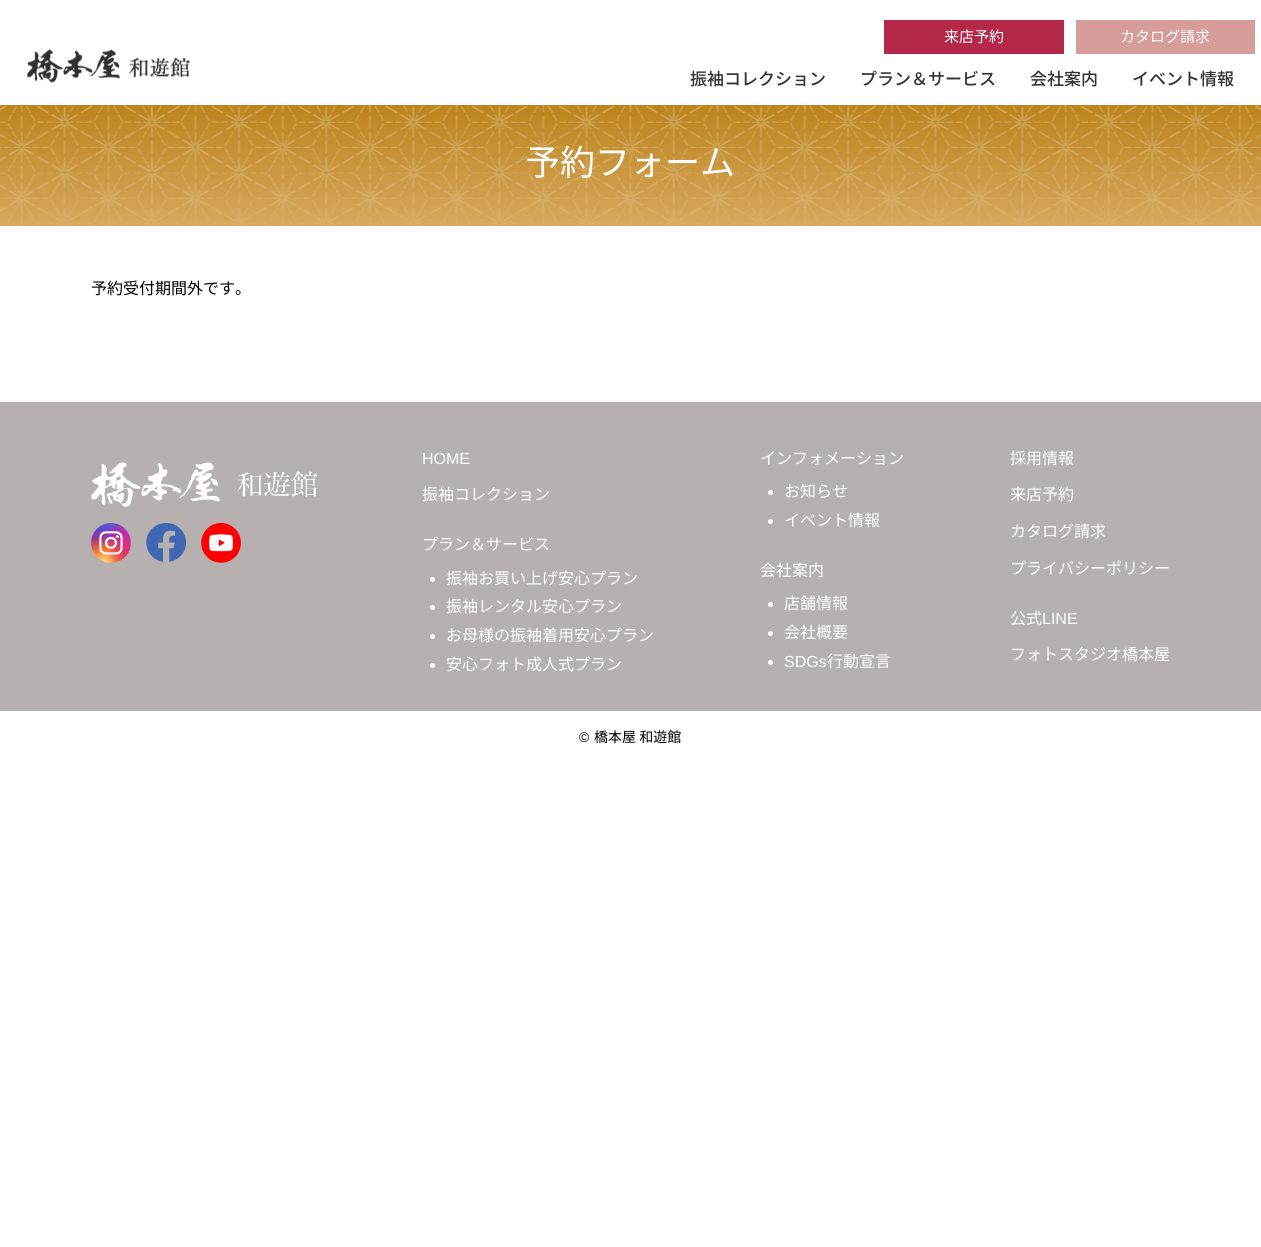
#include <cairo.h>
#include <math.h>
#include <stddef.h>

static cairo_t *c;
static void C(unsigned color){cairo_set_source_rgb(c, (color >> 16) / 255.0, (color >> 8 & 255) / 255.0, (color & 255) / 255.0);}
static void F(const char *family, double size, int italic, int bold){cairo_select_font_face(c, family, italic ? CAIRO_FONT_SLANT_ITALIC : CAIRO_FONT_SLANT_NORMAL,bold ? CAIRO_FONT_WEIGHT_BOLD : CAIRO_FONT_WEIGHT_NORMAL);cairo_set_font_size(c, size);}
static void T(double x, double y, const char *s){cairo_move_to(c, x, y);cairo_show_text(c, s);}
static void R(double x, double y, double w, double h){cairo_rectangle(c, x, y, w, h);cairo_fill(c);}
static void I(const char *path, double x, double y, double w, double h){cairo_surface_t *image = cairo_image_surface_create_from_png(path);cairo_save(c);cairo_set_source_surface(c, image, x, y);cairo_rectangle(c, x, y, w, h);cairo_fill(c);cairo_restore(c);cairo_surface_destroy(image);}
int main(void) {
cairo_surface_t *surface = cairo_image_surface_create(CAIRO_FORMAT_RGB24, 1261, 1247);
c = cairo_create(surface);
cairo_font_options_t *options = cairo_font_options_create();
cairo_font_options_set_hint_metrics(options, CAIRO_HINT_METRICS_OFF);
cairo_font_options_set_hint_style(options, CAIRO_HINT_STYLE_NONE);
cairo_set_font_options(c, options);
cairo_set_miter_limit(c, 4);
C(0xffffff);
cairo_paint(c);
I("1.png",27,49,163,34);
C(0xb5284a);
R(884,20,180,34);
F("Noto Sans JP",15,0,0);
C(0xffffff);
T(944,42,"来店予約");
C(0xd69d9a);
R(1076,20,179,34);
C(0xffffff);
T(1120,42,"カタログ請求");
F("Noto Sans JP Medium",17,0,0);
C(0x333333);
T(690,85,"振袖コレクション");
T(860,85,"プラン＆サービス");
T(1030,85,"会社案内");
T(1132,85,"イベント情報");
I("2.png",0,105,1261,121);
F("Noto Sans JP",35,0,0);
C(0xffffff);
T(525,175,"予約フォーム");
F("Noto Sans JP",16,0,0);
C(0x000000);
T(91,294,"予約受付期間外です。");
C(0xb7b0b1);
R(0,402,1261,309);
I("3.png",91,462,226,45);
I("4.png",91,523,40,40);
I("5.png",146,523,40,39);
I("6.png",201,523,40,40);
F("Liberation Sans",16,0,0);
C(0xffffff);
T(422,464,"HOME");
F("Noto Sans JP",16,0,0);
T(422,500,"振袖コレクション");
T(422,550,"プラン＆サービス");
cairo_new_path(c);
cairo_arc(c,432.5,579.5,2.5,0,2 * M_PI);
cairo_fill(c);
T(446,584,"振袖お買い上げ安心プラン");
cairo_new_path(c);
cairo_arc(c,432.5,607.5,2.5,0,2 * M_PI);
cairo_fill(c);
T(446,612,"振袖レンタル安心プラン");
cairo_new_path(c);
cairo_arc(c,432.5,636.5,2.5,0,2 * M_PI);
cairo_fill(c);
T(446,641,"お母様の振袖着用安心プラン");
cairo_new_path(c);
cairo_arc(c,432.5,665.5,2.5,0,2 * M_PI);
cairo_fill(c);
T(446,670,"安心フォト成人式プラン");
T(760,464,"インフォメーション");
cairo_new_path(c);
cairo_arc(c,770.5,492.5,2.5,0,2 * M_PI);
cairo_fill(c);
T(784,497,"お知らせ");
cairo_new_path(c);
cairo_arc(c,770.5,521.5,2.5,0,2 * M_PI);
cairo_fill(c);
T(784,526,"イベント情報");
T(760,576,"会社案内");
cairo_new_path(c);
cairo_arc(c,770.5,604.5,2.5,0,2 * M_PI);
cairo_fill(c);
T(784,609,"店舗情報");
cairo_new_path(c);
cairo_arc(c,770.5,633.5,2.5,0,2 * M_PI);
cairo_fill(c);
T(784,638,"会社概要");
cairo_new_path(c);
cairo_arc(c,770.5,662.5,2.5,0,2 * M_PI);
cairo_fill(c);
F("Liberation Sans",16,0,0);
T(784,667,"SDGs");
F("Noto Sans JP",16,0,0);
T(827,667,"行動宣言");
T(1010,464,"採用情報");
T(1010,500,"来店予約");
T(1010,537,"カタログ請求");
T(1010,574,"プライバシーポリシー");
T(1010,624,"公式");
F("Liberation Sans",16,0,0);
T(1042,624,"LINE");
F("Noto Sans JP",16,0,0);
T(1010,660,"フォトスタジオ橋本屋");
F("Liberation Sans",14,0,0);
C(0x000000);
T(579,742,"©");
F("Noto Sans JP",14,0,0);
T(594,742,"橋本屋 和遊館");
cairo_surface_write_to_png(surface, "o.png");
cairo_font_options_destroy(options);
cairo_destroy(c);
cairo_surface_destroy(surface);
return 0;
}
